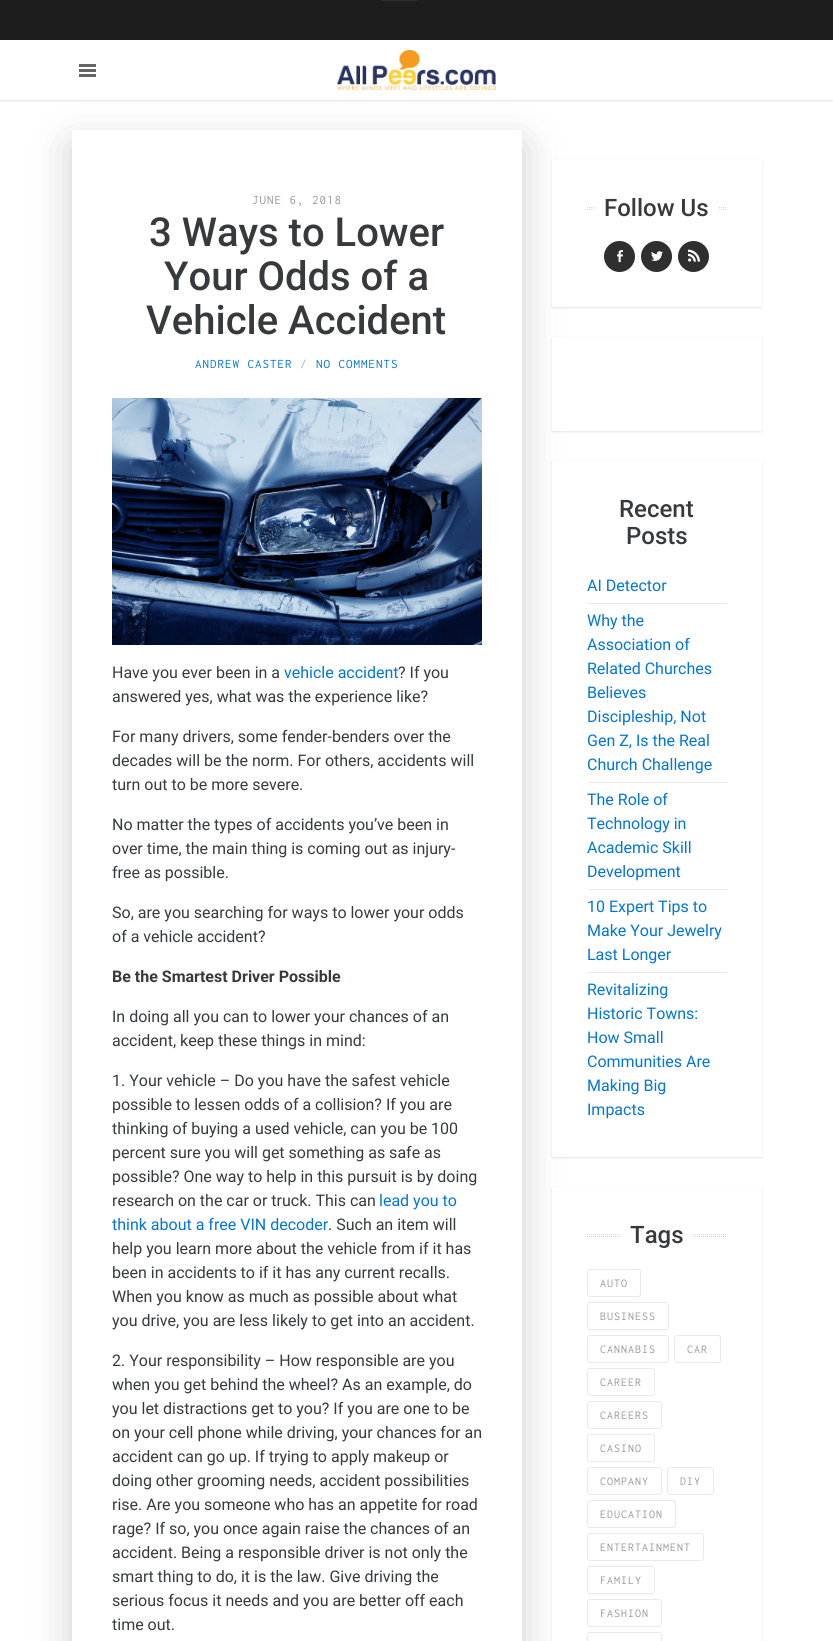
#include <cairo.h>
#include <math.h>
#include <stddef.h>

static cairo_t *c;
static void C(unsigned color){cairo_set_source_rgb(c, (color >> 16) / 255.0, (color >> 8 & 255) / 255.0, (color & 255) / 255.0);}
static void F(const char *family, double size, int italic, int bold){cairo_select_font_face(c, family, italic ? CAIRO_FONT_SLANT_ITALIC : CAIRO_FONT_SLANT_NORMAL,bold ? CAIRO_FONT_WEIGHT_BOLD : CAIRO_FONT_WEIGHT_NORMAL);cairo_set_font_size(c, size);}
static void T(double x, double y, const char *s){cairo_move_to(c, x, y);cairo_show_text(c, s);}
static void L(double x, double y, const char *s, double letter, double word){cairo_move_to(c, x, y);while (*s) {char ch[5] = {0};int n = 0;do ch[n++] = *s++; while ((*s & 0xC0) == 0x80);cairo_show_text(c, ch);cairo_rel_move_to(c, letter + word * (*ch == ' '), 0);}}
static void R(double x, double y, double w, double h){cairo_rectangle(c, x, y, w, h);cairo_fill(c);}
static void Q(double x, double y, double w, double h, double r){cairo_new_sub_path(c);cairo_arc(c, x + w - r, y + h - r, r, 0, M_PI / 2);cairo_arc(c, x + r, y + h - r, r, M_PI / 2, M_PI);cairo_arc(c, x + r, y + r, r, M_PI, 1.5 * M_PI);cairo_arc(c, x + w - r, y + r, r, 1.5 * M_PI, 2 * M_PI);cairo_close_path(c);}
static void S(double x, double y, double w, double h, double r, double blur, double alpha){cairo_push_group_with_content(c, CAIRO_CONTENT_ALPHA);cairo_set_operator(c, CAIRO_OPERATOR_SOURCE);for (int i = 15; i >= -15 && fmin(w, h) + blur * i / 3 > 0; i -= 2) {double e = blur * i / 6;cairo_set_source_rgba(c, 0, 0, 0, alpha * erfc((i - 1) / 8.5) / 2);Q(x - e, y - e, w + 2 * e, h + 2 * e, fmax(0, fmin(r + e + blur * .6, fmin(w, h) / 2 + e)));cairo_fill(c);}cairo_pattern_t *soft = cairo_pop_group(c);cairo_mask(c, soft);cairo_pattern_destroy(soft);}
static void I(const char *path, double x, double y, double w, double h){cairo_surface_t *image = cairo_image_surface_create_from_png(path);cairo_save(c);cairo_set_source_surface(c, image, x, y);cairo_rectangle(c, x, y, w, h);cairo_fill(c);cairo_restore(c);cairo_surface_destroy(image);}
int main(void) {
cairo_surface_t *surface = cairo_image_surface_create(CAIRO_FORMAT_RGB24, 833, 1641);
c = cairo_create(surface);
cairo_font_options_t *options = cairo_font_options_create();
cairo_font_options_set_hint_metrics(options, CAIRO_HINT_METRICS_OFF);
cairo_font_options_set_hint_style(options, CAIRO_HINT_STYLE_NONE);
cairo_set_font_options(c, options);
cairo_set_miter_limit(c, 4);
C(0xffffff);
cairo_paint(c);
cairo_save(c);
cairo_rectangle(c,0,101,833,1);
cairo_clip(c);
C(0x000000);
S(0,1,833,100,0,1,.1);
cairo_restore(c);
C(0x1d1d1d);
R(0,0,833,40);
C(0x2d2d2d);
R(381,0,36,1);
C(0x666666);
R(79,69,17,3);
R(79,64,17,3);
R(79,74,17,3);
I("1.png",337,50,159,40);
cairo_save(c);
cairo_set_fill_rule(c,CAIRO_FILL_RULE_EVEN_ODD);
cairo_new_path(c);
cairo_move_to(c,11,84);
cairo_line_to(c,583,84);
cairo_line_to(c,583,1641);
cairo_line_to(c,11,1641);
cairo_close_path(c);
cairo_move_to(c,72,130);
cairo_line_to(c,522,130);
cairo_line_to(c,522,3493);
cairo_line_to(c,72,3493);
cairo_close_path(c);
cairo_clip(c);
C(0x000000);
S(72,145,450,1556,0,20,.2);
cairo_restore(c);
C(0xeaeaea);
R(0,100,833,1);
F("Inconsolata",13,0,0);
C(0x999999);
L(252,204,"JUNE 6, 2018",1,0);
F("Roboto Medium",40,0,0);
C(0x373a3c);
T(149,246,"3 Ways to Lower");
T(164,290,"Your Odds of a");
T(146,334,"Vehicle Accident");
F("Inconsolata",13,0,0);
C(0x0275d8);
L(195,368,"ANDREW CASTER",1,0);
C(0xb2b2b2);
L(300,368,"/",1,0);
C(0x0275d8);
L(316,368,"NO COMMENTS",1,0);
I("2.png",112,398,370,247);
F("Roboto",16,0,0);
C(0x373a3c);
T(112,678,"Have you ever been in a");
C(0x0275d8);
T(284,678,"vehicle accident");
C(0x373a3c);
T(398,678,"? If you");
T(112,702,"answered yes, what was the experience like?");
T(112,742,"For many drivers, some fender-benders over the");
T(112,766,"decades will be the norm. For others, accidents will");
T(112,790,"turn out to be more severe.");
T(112,830,"No matter the types of accidents you’ve been in");
T(112,854,"over time, the main thing is coming out as injury-");
T(112,878,"free as possible.");
T(112,918,"So, are you searching for ways to lower your odds");
T(112,942,"of a vehicle accident?");
F("Roboto",16,0,1);
T(112,982,"Be the Smartest Driver Possible");
F("Roboto",16,0,0);
T(112,1022,"In doing all you can to lower your chances of an");
T(112,1046,"accident, keep these things in mind:");
T(112,1086,"1. Your vehicle – Do you have the safest vehicle");
T(112,1110,"possible to lessen odds of a collision? If you are");
T(112,1134,"thinking of buying a used vehicle, can you be 100");
T(112,1158,"percent sure you will get something as safe as");
T(112,1182,"possible? One way to help in this pursuit is by doing");
T(112,1206,"research on the car or truck. This can");
C(0x0275d8);
T(379,1206,"lead you to");
T(112,1230,"think about a free VIN decoder");
C(0x373a3c);
T(328,1230,". Such an item will");
T(112,1254,"help you learn more about the vehicle from if it has");
T(112,1278,"been in accidents to if it has any current recalls.");
T(112,1302,"When you know as much as possible about what");
T(112,1326,"you drive, you are less likely to get into an accident.");
T(112,1366,"2. Your responsibility – How responsible are you");
T(112,1390,"when you get behind the wheel? As an example, do");
T(112,1414,"you let distractions get to you? If you are one to be");
T(112,1438,"on your cell phone while driving, your chances for an");
T(112,1462,"accident can go up. If trying to apply makeup or");
T(112,1486,"doing other grooming needs, accident possibilities");
T(112,1510,"rise. Are you someone who has an appetite for road");
T(112,1534,"rage? If so, you once again raise the chances of an");
T(112,1558,"accident. Being a responsible driver is not only the");
T(112,1582,"smart thing to do, it is the law. Give driving the");
T(112,1606,"serious focus it needs and you are better off each");
T(112,1630,"time out.");
C(0x000000);
S(552,161,210,147,0,1,.1);
C(0xffffff);
R(552,160,210,147);
cairo_new_path(c);
cairo_move_to(c,587,207.5);
cairo_line_to(c,727,207.5);
C(0xd5d5d5);
cairo_set_line_width(c,1);
cairo_set_dash(c,(double[]){1,1},2,0);
cairo_stroke(c);
cairo_new_path(c);
cairo_move_to(c,587,209.5);
cairo_line_to(c,727,209.5);
cairo_stroke(c);
C(0xffffff);
R(595,207,123,3);
F("Roboto Medium",24,0,0);
C(0x373a3c);
T(604,216,"Follow Us");
C(0x2f2f2f);
cairo_new_path(c);
cairo_arc(c,619.5,256.5,15.5,0,2 * M_PI);
cairo_fill(c);
I("3.png",617,250,6,13);
cairo_arc(c,656.5,256.5,15.5,0,2 * M_PI);
cairo_fill(c);
I("4.png",651,251,12,10);
cairo_arc(c,693.5,256.5,15.5,0,2 * M_PI);
cairo_fill(c);
I("5.png",688,249,12,13);
C(0x000000);
S(552,338,210,94,0,1,.1);
C(0xffffff);
R(552,337,210,94);
C(0x000000);
S(552,462,210,696,0,1,.1);
C(0xffffff);
R(552,461,210,696);
C(0x373a3c);
T(619,517,"Recent");
T(626,544,"Posts");
F("Roboto",16,0,0);
C(0x0275d8);
T(587,591,"AI Detector");
C(0xeaeaea);
R(587,603,140,1);
C(0x0275d8);
T(587,626,"Why the");
T(587,650,"Association of");
T(587,674,"Related Churches");
T(587,698,"Believes");
T(587,722,"Discipleship, Not");
T(587,746,"Gen Z, Is the Real");
T(587,770,"Church Challenge");
C(0xeaeaea);
R(587,782,140,1);
C(0x0275d8);
T(587,805,"The Role of");
T(587,829,"Technology in");
T(587,853,"Academic Skill");
T(587,877,"Development");
C(0xeaeaea);
R(587,889,140,1);
C(0x0275d8);
T(587,912,"10 Expert Tips to");
T(587,936,"Make Your Jewelry");
T(587,960,"Last Longer");
C(0xeaeaea);
R(587,972,140,1);
C(0x0275d8);
T(587,995,"Revitalizing");
T(587,1019,"Historic Towns:");
T(587,1043,"How Small");
T(587,1067,"Communities Are");
T(587,1091,"Making Big");
T(587,1115,"Impacts");
C(0x000000);
S(552,1188,210,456,0,1,.1);
C(0xffffff);
R(552,1187,210,454);
cairo_new_path(c);
cairo_move_to(c,587,1234.5);
cairo_line_to(c,727,1234.5);
C(0xd5d5d5);
cairo_stroke(c);
cairo_new_path(c);
cairo_move_to(c,587,1236.5);
cairo_line_to(c,727,1236.5);
cairo_stroke(c);
C(0xffffff);
R(621,1234,71,3);
F("Roboto Medium",24,0,0);
C(0x373a3c);
T(630,1243,"Tags");
Q(587.5,1269.5,53,27,2.5);
C(0xeaeaea);
cairo_set_dash(c,NULL,0,0);
cairo_stroke(c);
F("Inconsolata",12,0,0);
C(0x999999);
L(600,1287,"AUTO",1,0);
Q(587.5,1302.5,81,27,2.5);
C(0xeaeaea);
cairo_stroke(c);
C(0x999999);
L(600,1320,"BUSINESS",1,0);
Q(587.5,1335.5,81,27,2.5);
C(0xeaeaea);
cairo_stroke(c);
C(0x999999);
L(600,1353,"CANNABIS",1,0);
Q(674.5,1335.5,46,27,2.5);
C(0xeaeaea);
cairo_stroke(c);
C(0x999999);
L(687,1353,"CAR",1,0);
Q(587.5,1368.5,67,27,2.5);
C(0xeaeaea);
cairo_stroke(c);
C(0x999999);
L(600,1386,"CAREER",1,0);
Q(587.5,1401.5,74,27,2.5);
C(0xeaeaea);
cairo_stroke(c);
C(0x999999);
L(600,1419,"CAREERS",1,0);
Q(587.5,1434.5,67,27,2.5);
C(0xeaeaea);
cairo_stroke(c);
C(0x999999);
L(600,1452,"CASINO",1,0);
Q(587.5,1467.5,74,27,2.5);
C(0xeaeaea);
cairo_stroke(c);
C(0x999999);
L(600,1485,"COMPANY",1,0);
Q(667.5,1467.5,46,27,2.5);
C(0xeaeaea);
cairo_stroke(c);
C(0x999999);
L(680,1485,"DIY",1,0);
Q(587.5,1500.5,88,27,2.5);
C(0xeaeaea);
cairo_stroke(c);
C(0x999999);
L(600,1518,"EDUCATION",1,0);
Q(587.5,1533.5,116,27,2.5);
C(0xeaeaea);
cairo_stroke(c);
C(0x999999);
L(600,1551,"ENTERTAINMENT",1,0);
Q(587.5,1566.5,67,27,2.5);
C(0xeaeaea);
cairo_stroke(c);
C(0x999999);
L(600,1584,"FAMILY",1,0);
Q(587.5,1599.5,74,27,2.5);
C(0xeaeaea);
cairo_stroke(c);
C(0x999999);
L(600,1617,"FASHION",1,0);
Q(587.5,1632.5,74,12,2.5);
C(0xeaeaea);
cairo_stroke(c);
cairo_surface_write_to_png(surface, "o.png");
cairo_font_options_destroy(options);
cairo_destroy(c);
cairo_surface_destroy(surface);
return 0;
}
